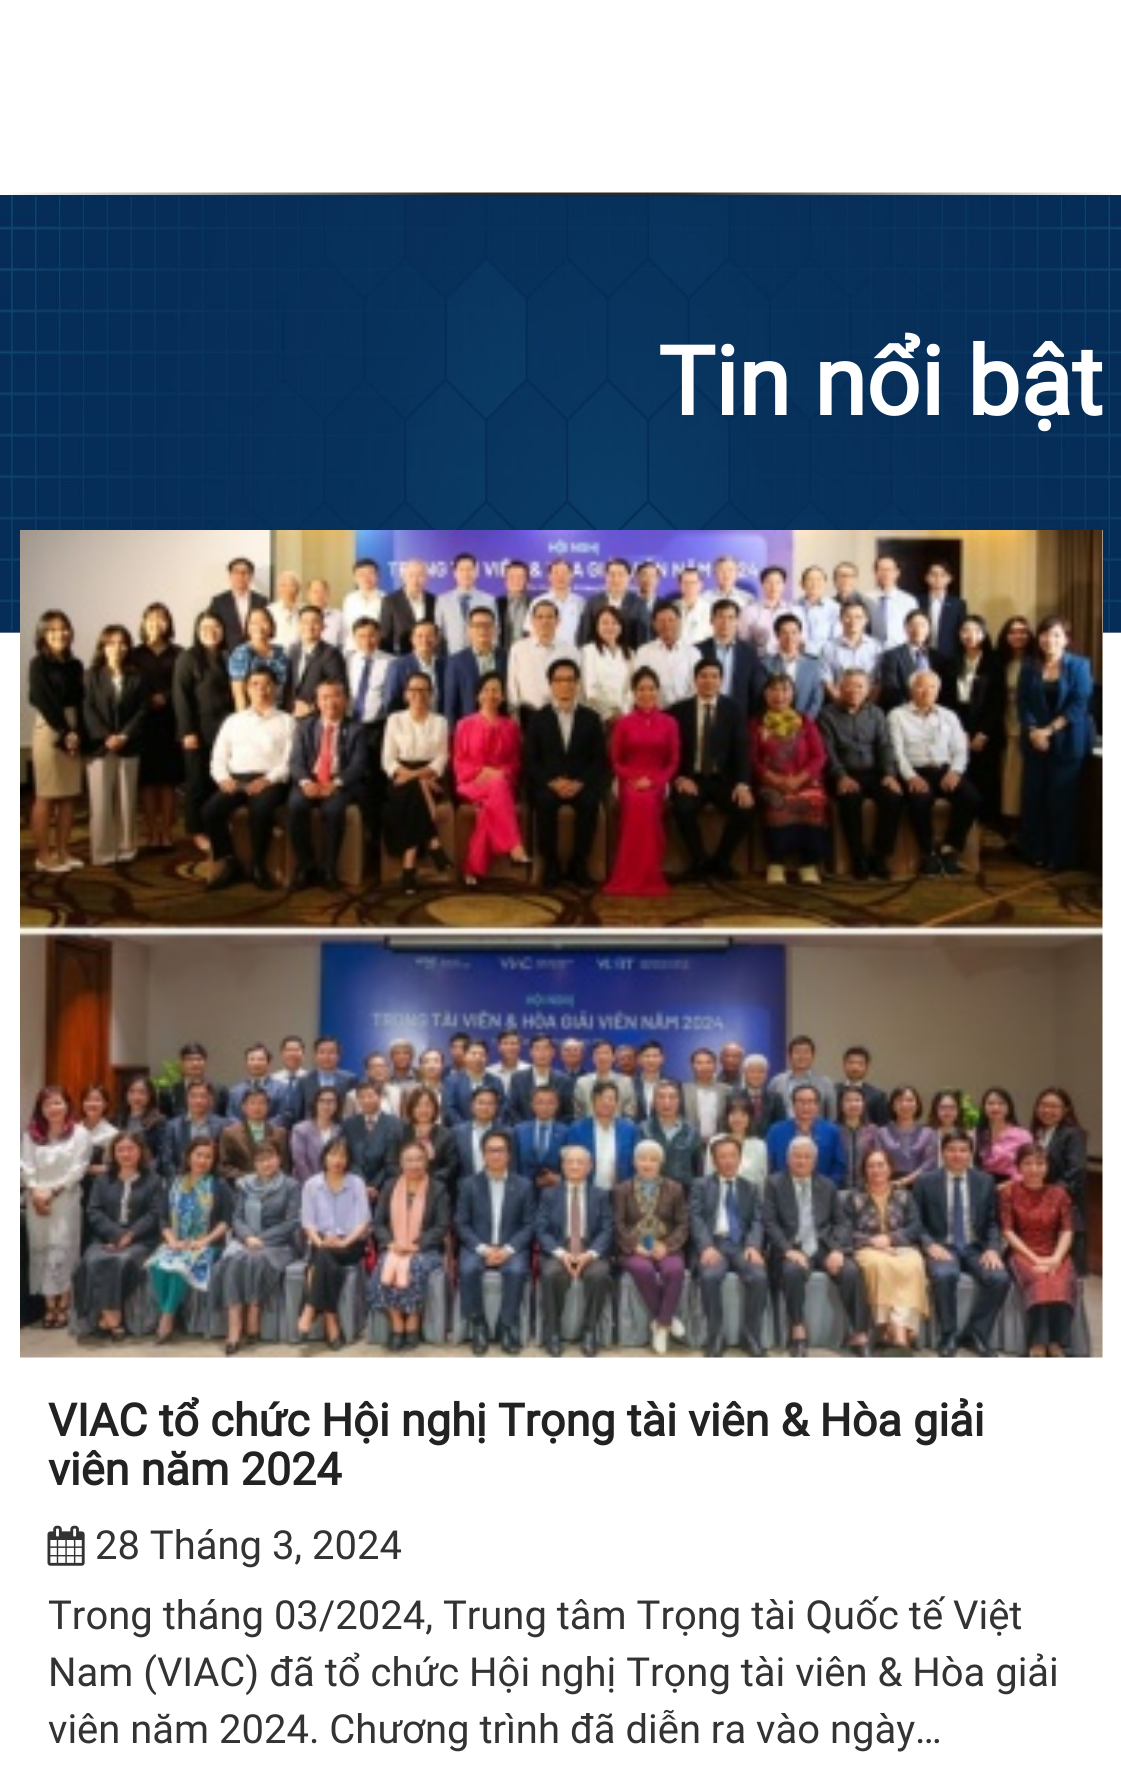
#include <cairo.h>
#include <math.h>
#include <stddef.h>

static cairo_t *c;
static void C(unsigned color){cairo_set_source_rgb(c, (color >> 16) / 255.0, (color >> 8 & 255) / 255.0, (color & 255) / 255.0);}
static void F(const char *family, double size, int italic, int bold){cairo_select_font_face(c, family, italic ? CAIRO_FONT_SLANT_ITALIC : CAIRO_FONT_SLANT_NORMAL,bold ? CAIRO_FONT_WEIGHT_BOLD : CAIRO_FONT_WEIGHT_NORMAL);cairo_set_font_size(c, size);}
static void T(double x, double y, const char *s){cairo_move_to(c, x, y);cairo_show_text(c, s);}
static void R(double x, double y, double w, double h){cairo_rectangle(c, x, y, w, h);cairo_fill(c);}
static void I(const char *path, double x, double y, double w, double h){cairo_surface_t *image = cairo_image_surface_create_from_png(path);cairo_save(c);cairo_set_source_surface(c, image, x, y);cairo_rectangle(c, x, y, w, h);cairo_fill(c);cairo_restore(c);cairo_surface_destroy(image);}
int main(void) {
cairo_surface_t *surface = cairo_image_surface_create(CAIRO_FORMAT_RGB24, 1121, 1783);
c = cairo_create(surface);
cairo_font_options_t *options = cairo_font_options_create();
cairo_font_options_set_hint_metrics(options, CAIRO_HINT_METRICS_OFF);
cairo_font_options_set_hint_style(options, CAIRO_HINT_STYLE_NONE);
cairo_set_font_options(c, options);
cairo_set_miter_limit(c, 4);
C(0xffffff);
cairo_paint(c);
I("1.png",10,192,1103,3);
C(0xb3b3b3);
R(0,632,1121,1);
I("2.png",0,195,1121,438);
F("Roboto",95,0,1);
C(0xffffff);
T(658,415,"Tin nổi bật");
R(20,530,1083,103);
I("3.png",20,530,1083,828);
F("Roboto",45,0,1);
C(0x222222);
T(48,1436,"VIAC tổ chức Hội nghị Trọng tài viên & Hòa giải");
T(48,1485,"viên năm 2024");
I("4.png",47,1525,38,41);
F("Roboto",40,0,0);
C(0x333333);
T(95,1559,"28 Tháng 3, 2024");
T(48,1629,"Trong tháng 03/2024, Trung tâm Trọng tài Quốc tế Việt");
T(48,1686,"Nam (VIAC) đã tổ chức Hội nghị Trọng tài viên & Hòa giải");
T(48,1743,"viên năm 2024. Chương trình đã diễn ra vào ngày…");
cairo_surface_write_to_png(surface, "o.png");
cairo_font_options_destroy(options);
cairo_destroy(c);
cairo_surface_destroy(surface);
return 0;
}
